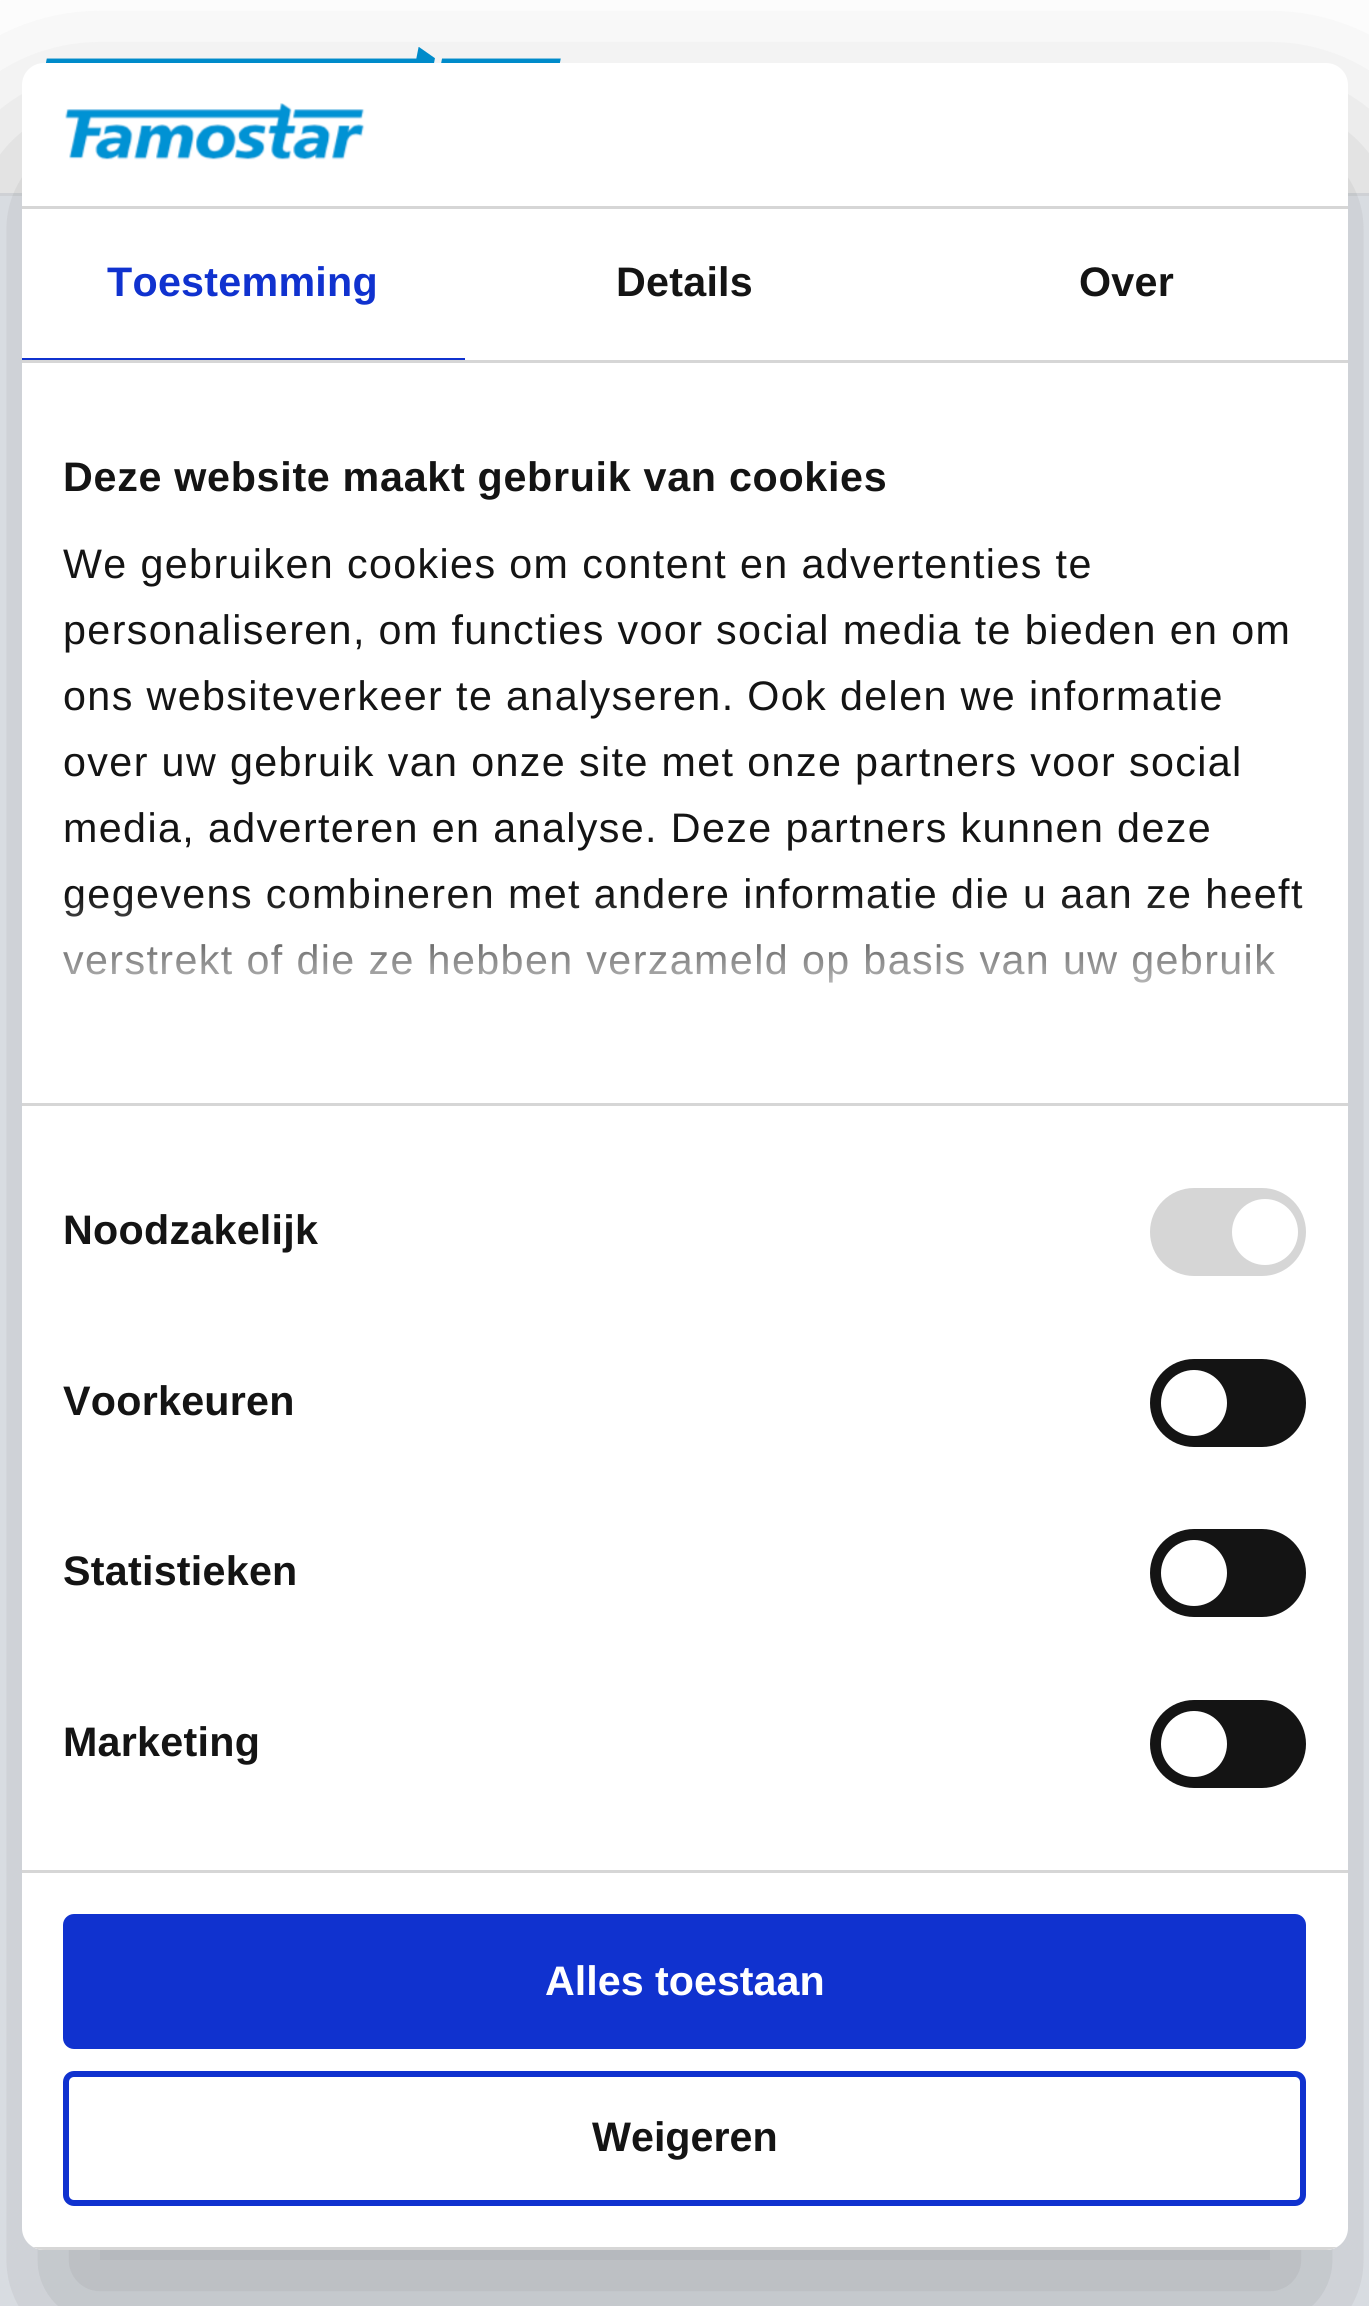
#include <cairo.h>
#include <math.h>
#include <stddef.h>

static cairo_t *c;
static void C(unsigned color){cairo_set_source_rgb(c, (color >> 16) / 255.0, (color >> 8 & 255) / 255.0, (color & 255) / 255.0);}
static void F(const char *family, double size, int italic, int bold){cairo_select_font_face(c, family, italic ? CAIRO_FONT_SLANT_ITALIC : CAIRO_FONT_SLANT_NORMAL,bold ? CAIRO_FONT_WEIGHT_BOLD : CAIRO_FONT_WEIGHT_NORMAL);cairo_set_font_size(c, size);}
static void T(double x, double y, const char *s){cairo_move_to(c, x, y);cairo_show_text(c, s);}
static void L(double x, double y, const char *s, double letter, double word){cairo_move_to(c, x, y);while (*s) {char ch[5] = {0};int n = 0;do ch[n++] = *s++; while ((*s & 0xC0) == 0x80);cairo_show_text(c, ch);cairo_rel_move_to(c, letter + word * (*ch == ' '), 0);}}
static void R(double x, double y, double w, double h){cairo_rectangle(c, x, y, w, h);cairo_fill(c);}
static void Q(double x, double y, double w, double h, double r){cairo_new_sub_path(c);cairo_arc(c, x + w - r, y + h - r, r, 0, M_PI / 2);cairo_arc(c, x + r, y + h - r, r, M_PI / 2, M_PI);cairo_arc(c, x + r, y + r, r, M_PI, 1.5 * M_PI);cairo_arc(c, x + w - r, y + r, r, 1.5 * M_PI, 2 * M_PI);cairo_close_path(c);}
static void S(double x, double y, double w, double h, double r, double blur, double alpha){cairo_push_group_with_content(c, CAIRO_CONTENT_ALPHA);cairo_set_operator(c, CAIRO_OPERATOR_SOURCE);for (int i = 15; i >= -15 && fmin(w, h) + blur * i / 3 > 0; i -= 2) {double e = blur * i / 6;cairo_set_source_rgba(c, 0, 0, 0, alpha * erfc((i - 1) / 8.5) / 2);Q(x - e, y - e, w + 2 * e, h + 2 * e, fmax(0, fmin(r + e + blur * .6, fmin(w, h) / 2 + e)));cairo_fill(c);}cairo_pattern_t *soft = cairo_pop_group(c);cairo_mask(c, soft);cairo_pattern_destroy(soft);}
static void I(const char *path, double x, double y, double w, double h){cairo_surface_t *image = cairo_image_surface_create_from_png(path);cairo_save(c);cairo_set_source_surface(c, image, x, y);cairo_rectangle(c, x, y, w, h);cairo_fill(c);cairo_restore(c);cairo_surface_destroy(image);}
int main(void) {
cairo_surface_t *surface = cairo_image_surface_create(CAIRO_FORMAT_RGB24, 1369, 2306);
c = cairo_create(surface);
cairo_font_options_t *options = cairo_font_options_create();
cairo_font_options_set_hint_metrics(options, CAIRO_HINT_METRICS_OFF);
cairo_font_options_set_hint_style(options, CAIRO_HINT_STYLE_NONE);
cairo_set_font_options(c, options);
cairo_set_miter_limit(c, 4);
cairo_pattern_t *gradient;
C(0xf3f7fd);
cairo_paint(c);
C(0xffffff);
R(0,0,1369,193);
C(0xe8ebef);
R(0,193,1369,3);
I("1.png",46,47,515,16);
C(0x000000);
S(22,151,1326,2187,22,93.5,.3);
C(0xffffff);
Q(22,63,1326,2187,22);
cairo_fill(c);
C(0xd6d6d6);
R(22,206,1326,3);
I("2.png",65,103,300,57);
R(22,360,1326,3);
C(0x1032cf);
R(22,358,443,2);
F("Liberation Sans",41.25,0,1);
L(107,296,"Toestemming",.25,0);
C(0x141414);
L(616,296,"Details",.25,0);
L(1079,296,"Over",.25,0);
C(0xd6d6d6);
R(22,1103,1326,3);
C(0x141414);
L(63,491,"Deze website maakt gebruik van cookies",.7,0);
F("Liberation Sans",41.25,0,0);
L(63,578,"We gebruiken cookies om content en advertenties te",1.38,0);
L(63,644,"personaliseren, om functies voor social media te bieden en om",1.38,0);
L(63,710,"ons websiteverkeer te analyseren. Ook delen we informatie",1.38,0);
L(63,776,"over uw gebruik van onze site met onze partners voor social",1.38,0);
L(63,842,"media, adverteren en analyse. Deze partners kunnen deze",1.38,0);
L(63,908,"gegevens combineren met andere informatie die u aan ze heeft",1.38,0);
L(63,974,"verstrekt of die ze hebben verzameld op basis van uw gebruik",1.38,0);
gradient = cairo_pattern_create_linear(667,1101,667,895);
cairo_pattern_add_color_stop_rgba(gradient,0,1,1,1,1);
cairo_pattern_add_color_stop_rgba(gradient,.5,1,1,1,.8);
cairo_pattern_add_color_stop_rgba(gradient,1,1,1,1,0);
cairo_set_source(c,gradient);
cairo_pattern_destroy(gradient);
R(63,898,1239,85);
C(0xd6d6d6);
R(22,1870,1326,3);
F("Liberation Sans",41.25,0,1);
C(0x141414);
L(63,1244,"Noodzakelijk",.25,0);
C(0xd6d6d6);
Q(1150,1188,156,88,44);
cairo_fill(c);
C(0xffffff);
cairo_arc(c,1265,1232,33,0,2 * M_PI);
cairo_fill(c);
C(0x141414);
L(63,1415,"Voorkeuren",.25,0);
Q(1150,1359,156,88,44);
cairo_fill(c);
C(0xffffff);
cairo_arc(c,1194,1403,33,0,2 * M_PI);
cairo_fill(c);
C(0x141414);
L(63,1585,"Statistieken",.25,0);
Q(1150,1529,156,88,44);
cairo_fill(c);
C(0xffffff);
cairo_arc(c,1194,1573,33,0,2 * M_PI);
cairo_fill(c);
C(0x141414);
L(63,1756,"Marketing",.25,0);
Q(1150,1700,156,88,44);
cairo_fill(c);
C(0xffffff);
cairo_arc(c,1194,1744,33,0,2 * M_PI);
cairo_fill(c);
cairo_save(c);
Q(22,63,1326,2187,22);
cairo_clip(c);
C(0xd6d6d6);
R(33,2247,1304,3);
cairo_restore(c);
C(0x1032cf);
Q(66,1917,1237,129,8);
cairo_fill_preserve(c);
cairo_set_line_width(c,6);
cairo_stroke(c);
C(0xffffff);
T(545,1995,"Alles toestaan");
Q(66,2074,1237,129,8);
C(0x1032cf);
cairo_stroke(c);
C(0x141414);
T(592,2151,"Weigeren");
cairo_surface_write_to_png(surface, "o.png");
cairo_font_options_destroy(options);
cairo_destroy(c);
cairo_surface_destroy(surface);
return 0;
}
